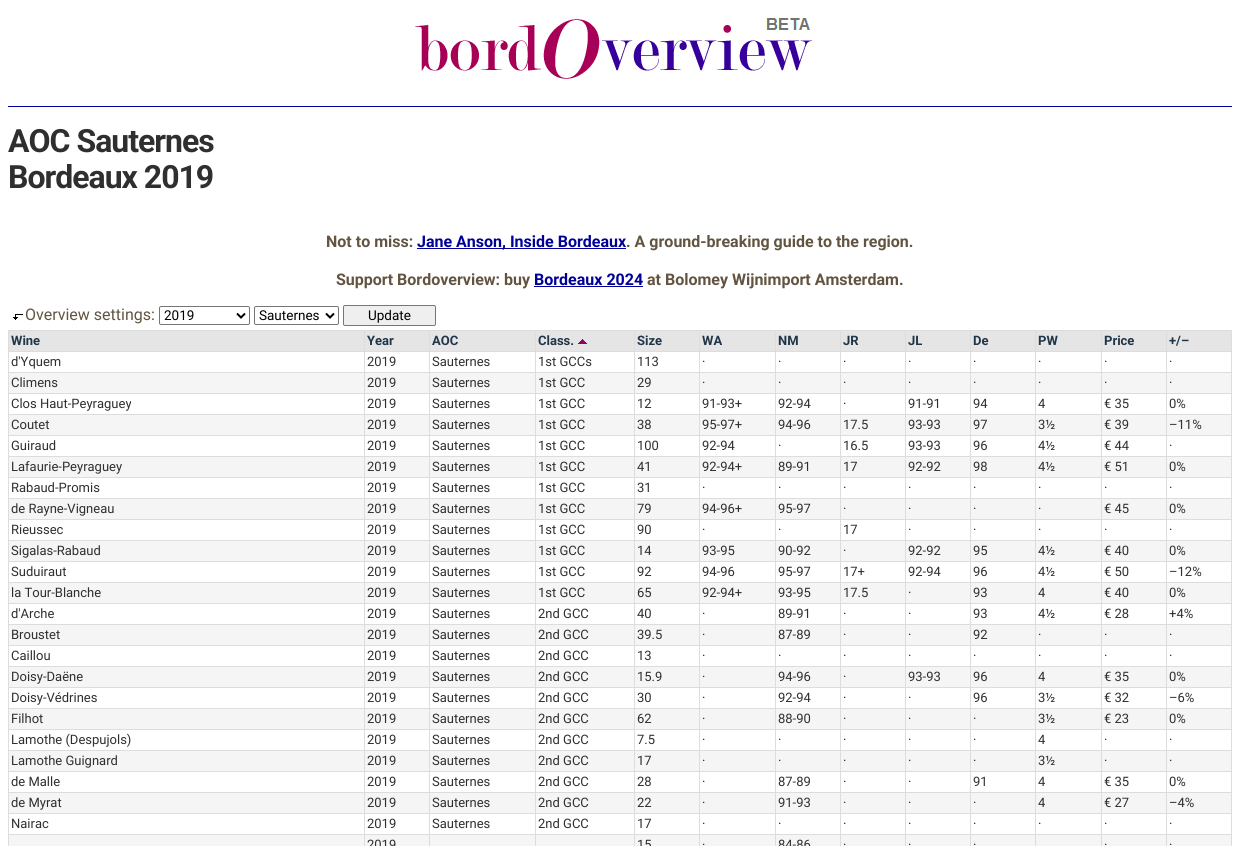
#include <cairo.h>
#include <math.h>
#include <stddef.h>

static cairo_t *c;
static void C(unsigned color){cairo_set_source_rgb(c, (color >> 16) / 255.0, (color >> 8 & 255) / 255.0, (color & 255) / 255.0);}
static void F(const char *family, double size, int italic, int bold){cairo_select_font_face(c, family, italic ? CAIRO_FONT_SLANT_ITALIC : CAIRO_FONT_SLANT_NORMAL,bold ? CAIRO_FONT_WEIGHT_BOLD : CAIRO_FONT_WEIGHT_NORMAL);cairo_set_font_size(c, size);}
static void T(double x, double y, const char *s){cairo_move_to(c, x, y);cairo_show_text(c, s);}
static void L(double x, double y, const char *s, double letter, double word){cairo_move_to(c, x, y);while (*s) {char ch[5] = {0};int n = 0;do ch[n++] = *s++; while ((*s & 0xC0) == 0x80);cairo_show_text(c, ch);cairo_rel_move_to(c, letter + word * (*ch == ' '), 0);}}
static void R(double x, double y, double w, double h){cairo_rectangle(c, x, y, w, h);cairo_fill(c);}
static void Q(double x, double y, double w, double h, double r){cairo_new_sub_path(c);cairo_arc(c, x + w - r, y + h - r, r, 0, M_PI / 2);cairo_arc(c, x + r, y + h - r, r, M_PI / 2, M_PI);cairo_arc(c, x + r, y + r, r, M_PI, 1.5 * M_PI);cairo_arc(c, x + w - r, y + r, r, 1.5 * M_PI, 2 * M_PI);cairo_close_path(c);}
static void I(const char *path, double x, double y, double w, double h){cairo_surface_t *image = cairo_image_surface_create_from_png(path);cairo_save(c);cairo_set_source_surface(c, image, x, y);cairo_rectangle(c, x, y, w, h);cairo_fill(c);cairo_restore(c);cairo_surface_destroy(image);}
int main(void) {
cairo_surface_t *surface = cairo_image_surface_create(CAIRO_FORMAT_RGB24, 1240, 846);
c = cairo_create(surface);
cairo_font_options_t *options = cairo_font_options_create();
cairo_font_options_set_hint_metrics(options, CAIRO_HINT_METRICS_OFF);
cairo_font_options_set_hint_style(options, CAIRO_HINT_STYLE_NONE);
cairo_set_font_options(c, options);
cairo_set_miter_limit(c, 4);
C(0xffffff);
cairo_paint(c);
I("1.png",414,16,400,64);
C(0x000099);
R(8,106,1224,1);
F("Roboto",32,0,1);
C(0x2f2f2f);
L(8,152,"AOC Sauternes",-1,0);
L(8,188,"Bordeaux 2019",-1,0);
F("Roboto",16,0,1);
C(0x625440);
T(326,247,"Not to miss:");
C(0x000099);
R(417,248,209,1);
T(417,247,"Jane Anson, Inside Bordeaux");
C(0x625440);
T(626,247,". A ground-breaking guide to the region.");
T(336,285,"Support Bordoverview: buy");
C(0x000099);
R(534,286,109,1);
T(534,285,"Bordeaux 2024");
C(0x625440);
T(647,285,"at Bolomey Wijnimport Amsterdam.");
I("2.png",13,314,10,6);
F("Roboto",16,0,0);
T(25,320,"Overview settings:");
Q(159.5,306.5,90,18,1.5);
C(0x767676);
cairo_set_line_width(c,1);
cairo_stroke(c);
cairo_new_path(c);
cairo_move_to(c,237,313.5);
cairo_line_to(c,241,317.5);
cairo_line_to(c,245,313.5);
C(0x000000);
cairo_set_line_width(c,2);
cairo_stroke(c);
F("Roboto",13.5,0,0);
T(164,320,"2019");
Q(254.5,306.5,84,18,1.5);
C(0x767676);
cairo_set_line_width(c,1);
cairo_stroke(c);
cairo_new_path(c);
cairo_move_to(c,326,313.5);
cairo_line_to(c,330,317.5);
cairo_line_to(c,334,313.5);
C(0x000000);
cairo_set_line_width(c,2);
cairo_stroke(c);
T(259,320,"Sauternes");
C(0xefefef);
Q(343.5,305.5,92,20,1.5);
cairo_fill_preserve(c);
C(0x767676);
cairo_set_line_width(c,1);
cairo_stroke(c);
C(0x000000);
T(368,320,"Update");
C(0xe5e5e5);
R(9,331,355,20);
C(0xdddddd);
R(1166,330,66,1);
R(1166,351,66,1);
R(1166,372,66,1);
C(0xf5f5f5);
R(9,373,1222,20);
C(0xdddddd);
R(1166,393,66,1);
R(1166,414,66,1);
C(0xf5f5f5);
R(9,415,1222,20);
C(0xdddddd);
R(1166,435,66,1);
R(1166,456,66,1);
C(0xf5f5f5);
R(9,457,1222,20);
C(0xdddddd);
R(1166,477,66,1);
R(1166,498,66,1);
C(0xf5f5f5);
R(9,499,1222,20);
C(0xdddddd);
R(1166,519,66,1);
R(1166,540,66,1);
C(0xf5f5f5);
R(9,541,1222,20);
C(0xdddddd);
R(1166,561,66,1);
R(1166,582,66,1);
C(0xf5f5f5);
R(9,583,1222,20);
C(0xdddddd);
R(1166,603,66,1);
R(1166,624,66,1);
C(0xf5f5f5);
R(9,625,1222,20);
C(0xdddddd);
R(1166,645,66,1);
R(1166,666,66,1);
C(0xf5f5f5);
R(9,667,1222,20);
C(0xdddddd);
R(1166,687,66,1);
R(1166,708,66,1);
C(0xf5f5f5);
R(9,709,1222,20);
C(0xdddddd);
R(1166,729,66,1);
R(1166,750,66,1);
C(0xf5f5f5);
R(9,751,1222,20);
C(0xdddddd);
R(1166,771,66,1);
R(1166,792,66,1);
C(0xf5f5f5);
R(9,793,1222,20);
C(0xdddddd);
R(1166,813,66,1);
R(1166,834,66,1);
C(0xf5f5f5);
R(9,835,1222,11);
C(0xdddddd);
R(1166,834,1,12);
R(1101,834,66,1);
R(1166,813,1,22);
R(1101,813,66,1);
R(1166,792,1,22);
R(1101,792,66,1);
R(1166,771,1,22);
R(1101,771,66,1);
R(1166,750,1,22);
R(1101,750,66,1);
R(1166,729,1,22);
R(1101,729,66,1);
R(1166,708,1,22);
R(1101,708,66,1);
R(1166,687,1,22);
R(1101,687,66,1);
R(1166,666,1,22);
R(1101,666,66,1);
R(1166,645,1,22);
R(1101,645,66,1);
R(1166,624,1,22);
R(1101,624,66,1);
R(1166,603,1,22);
R(1101,603,66,1);
R(1166,582,1,22);
R(1101,582,66,1);
R(1166,561,1,22);
R(1101,561,66,1);
R(1166,540,1,22);
R(1101,540,66,1);
R(1166,519,1,22);
R(1101,519,66,1);
R(1166,498,1,22);
R(1101,498,66,1);
R(1166,477,1,22);
R(1101,477,66,1);
R(1166,456,1,22);
R(1101,456,66,1);
R(1166,435,1,22);
R(1101,435,66,1);
R(1166,414,1,22);
R(1101,414,66,1);
R(1166,393,1,22);
R(1101,393,66,1);
R(1166,372,1,22);
R(1101,372,66,1);
R(1166,351,1,22);
R(1101,351,66,1);
R(1166,330,1,22);
R(1101,330,66,1);
R(1101,834,1,12);
R(1035,834,67,1);
R(1101,813,1,22);
R(1035,813,67,1);
R(1101,792,1,22);
R(1035,792,67,1);
R(1101,771,1,22);
R(1035,771,67,1);
R(1101,750,1,22);
R(1035,750,67,1);
R(1101,729,1,22);
R(1035,729,67,1);
R(1101,708,1,22);
R(1035,708,67,1);
R(1101,687,1,22);
R(1035,687,67,1);
R(1101,666,1,22);
R(1035,666,67,1);
R(1101,645,1,22);
R(1035,645,67,1);
R(1101,624,1,22);
R(1035,624,67,1);
R(1101,603,1,22);
R(1035,603,67,1);
R(1101,582,1,22);
R(1035,582,67,1);
R(1101,561,1,22);
R(1035,561,67,1);
R(1101,540,1,22);
R(1035,540,67,1);
R(1101,519,1,22);
R(1035,519,67,1);
R(1101,498,1,22);
R(1035,498,67,1);
R(1101,477,1,22);
R(1035,477,67,1);
R(1101,456,1,22);
R(1035,456,67,1);
R(1101,435,1,22);
R(1035,435,67,1);
R(1101,414,1,22);
R(1035,414,67,1);
R(1101,393,1,22);
R(1035,393,67,1);
R(1101,372,1,22);
R(1035,372,67,1);
R(1101,351,1,22);
R(1035,351,67,1);
R(1101,330,1,22);
R(1035,330,67,1);
R(1035,834,1,12);
R(970,834,66,1);
R(1035,813,1,22);
R(970,813,66,1);
R(1035,792,1,22);
R(970,792,66,1);
R(1035,771,1,22);
R(970,771,66,1);
R(1035,750,1,22);
R(970,750,66,1);
R(1035,729,1,22);
R(970,729,66,1);
R(1035,708,1,22);
R(970,708,66,1);
R(1035,687,1,22);
R(970,687,66,1);
R(1035,666,1,22);
R(970,666,66,1);
R(1035,645,1,22);
R(970,645,66,1);
R(1035,624,1,22);
R(970,624,66,1);
R(1035,603,1,22);
R(970,603,66,1);
R(1035,582,1,22);
R(970,582,66,1);
R(1035,561,1,22);
R(970,561,66,1);
R(1035,540,1,22);
R(970,540,66,1);
R(1035,519,1,22);
R(970,519,66,1);
R(1035,498,1,22);
R(970,498,66,1);
R(1035,477,1,22);
R(970,477,66,1);
R(1035,456,1,22);
R(970,456,66,1);
R(1035,435,1,22);
R(970,435,66,1);
R(1035,414,1,22);
R(970,414,66,1);
R(1035,393,1,22);
R(970,393,66,1);
R(1035,372,1,22);
R(970,372,66,1);
R(1035,351,1,22);
R(970,351,66,1);
R(1035,330,1,22);
R(970,330,66,1);
R(970,834,1,12);
R(905,834,66,1);
R(970,813,1,22);
R(905,813,66,1);
R(970,792,1,22);
R(905,792,66,1);
R(970,771,1,22);
R(905,771,66,1);
R(970,750,1,22);
R(905,750,66,1);
R(970,729,1,22);
R(905,729,66,1);
R(970,708,1,22);
R(905,708,66,1);
R(970,687,1,22);
R(905,687,66,1);
R(970,666,1,22);
R(905,666,66,1);
R(970,645,1,22);
R(905,645,66,1);
R(970,624,1,22);
R(905,624,66,1);
R(970,603,1,22);
R(905,603,66,1);
R(970,582,1,22);
R(905,582,66,1);
R(970,561,1,22);
R(905,561,66,1);
R(970,540,1,22);
R(905,540,66,1);
R(970,519,1,22);
R(905,519,66,1);
R(970,498,1,22);
R(905,498,66,1);
R(970,477,1,22);
R(905,477,66,1);
R(970,456,1,22);
R(905,456,66,1);
R(970,435,1,22);
R(905,435,66,1);
R(970,414,1,22);
R(905,414,66,1);
R(970,393,1,22);
R(905,393,66,1);
R(970,372,1,22);
R(905,372,66,1);
R(970,351,1,22);
R(905,351,66,1);
R(970,330,1,22);
R(905,330,66,1);
R(905,834,1,12);
R(840,834,66,1);
R(905,813,1,22);
R(840,813,66,1);
R(905,792,1,22);
R(840,792,66,1);
R(905,771,1,22);
R(840,771,66,1);
R(905,750,1,22);
R(840,750,66,1);
R(905,729,1,22);
R(840,729,66,1);
R(905,708,1,22);
R(840,708,66,1);
R(905,687,1,22);
R(840,687,66,1);
R(905,666,1,22);
R(840,666,66,1);
R(905,645,1,22);
R(840,645,66,1);
R(905,624,1,22);
R(840,624,66,1);
R(905,603,1,22);
R(840,603,66,1);
R(905,582,1,22);
R(840,582,66,1);
R(905,561,1,22);
R(840,561,66,1);
R(905,540,1,22);
R(840,540,66,1);
R(905,519,1,22);
R(840,519,66,1);
R(905,498,1,22);
R(840,498,66,1);
R(905,477,1,22);
R(840,477,66,1);
R(905,456,1,22);
R(840,456,66,1);
R(905,435,1,22);
R(840,435,66,1);
R(905,414,1,22);
R(840,414,66,1);
R(905,393,1,22);
R(840,393,66,1);
R(905,372,1,22);
R(840,372,66,1);
R(905,351,1,22);
R(840,351,66,1);
R(905,330,1,22);
R(840,330,66,1);
R(840,834,1,12);
R(775,834,66,1);
R(840,813,1,22);
R(775,813,66,1);
R(840,792,1,22);
R(775,792,66,1);
R(840,771,1,22);
R(775,771,66,1);
R(840,750,1,22);
R(775,750,66,1);
R(840,729,1,22);
R(775,729,66,1);
R(840,708,1,22);
R(775,708,66,1);
R(840,687,1,22);
R(775,687,66,1);
R(840,666,1,22);
R(775,666,66,1);
R(840,645,1,22);
R(775,645,66,1);
R(840,624,1,22);
R(775,624,66,1);
R(840,603,1,22);
R(775,603,66,1);
R(840,582,1,22);
R(775,582,66,1);
R(840,561,1,22);
R(775,561,66,1);
R(840,540,1,22);
R(775,540,66,1);
R(840,519,1,22);
R(775,519,66,1);
R(840,498,1,22);
R(775,498,66,1);
R(840,477,1,22);
R(775,477,66,1);
R(840,456,1,22);
R(775,456,66,1);
R(840,435,1,22);
R(775,435,66,1);
R(840,414,1,22);
R(775,414,66,1);
R(840,393,1,22);
R(775,393,66,1);
R(840,372,1,22);
R(775,372,66,1);
R(840,351,1,22);
R(775,351,66,1);
R(840,330,1,22);
R(775,330,66,1);
R(775,834,1,12);
R(699,834,77,1);
R(775,813,1,22);
R(699,813,77,1);
R(775,792,1,22);
R(699,792,77,1);
R(775,771,1,22);
R(699,771,77,1);
R(775,750,1,22);
R(699,750,77,1);
R(775,729,1,22);
R(699,729,77,1);
R(775,708,1,22);
R(699,708,77,1);
R(775,687,1,22);
R(699,687,77,1);
R(775,666,1,22);
R(699,666,77,1);
R(775,645,1,22);
R(699,645,77,1);
R(775,624,1,22);
R(699,624,77,1);
R(775,603,1,22);
R(699,603,77,1);
R(775,582,1,22);
R(699,582,77,1);
R(775,561,1,22);
R(699,561,77,1);
R(775,540,1,22);
R(699,540,77,1);
R(775,519,1,22);
R(699,519,77,1);
R(775,498,1,22);
R(699,498,77,1);
R(775,477,1,22);
R(699,477,77,1);
R(775,456,1,22);
R(699,456,77,1);
R(775,435,1,22);
R(699,435,77,1);
R(775,414,1,22);
R(699,414,77,1);
R(775,393,1,22);
R(699,393,77,1);
R(775,372,1,22);
R(699,372,77,1);
R(775,351,1,22);
R(699,351,77,1);
R(775,330,1,22);
R(699,330,77,1);
R(699,834,1,12);
R(634,834,66,1);
R(699,813,1,22);
R(634,813,66,1);
R(699,792,1,22);
R(634,792,66,1);
R(699,771,1,22);
R(634,771,66,1);
R(699,750,1,22);
R(634,750,66,1);
R(699,729,1,22);
R(634,729,66,1);
R(699,708,1,22);
R(634,708,66,1);
R(699,687,1,22);
R(634,687,66,1);
R(699,666,1,22);
R(634,666,66,1);
R(699,645,1,22);
R(634,645,66,1);
R(699,624,1,22);
R(634,624,66,1);
R(699,603,1,22);
R(634,603,66,1);
R(699,582,1,22);
R(634,582,66,1);
R(699,561,1,22);
R(634,561,66,1);
R(699,540,1,22);
R(634,540,66,1);
R(699,519,1,22);
R(634,519,66,1);
R(699,498,1,22);
R(634,498,66,1);
R(699,477,1,22);
R(634,477,66,1);
R(699,456,1,22);
R(634,456,66,1);
R(699,435,1,22);
R(634,435,66,1);
R(699,414,1,22);
R(634,414,66,1);
R(699,393,1,22);
R(634,393,66,1);
R(699,372,1,22);
R(634,372,66,1);
R(699,351,1,22);
R(634,351,66,1);
R(699,330,1,22);
R(634,330,66,1);
R(634,834,1,12);
R(535,834,100,1);
R(634,813,1,22);
R(535,813,100,1);
R(634,792,1,22);
R(535,792,100,1);
R(634,771,1,22);
R(535,771,100,1);
R(634,750,1,22);
R(535,750,100,1);
R(634,729,1,22);
R(535,729,100,1);
R(634,708,1,22);
R(535,708,100,1);
R(634,687,1,22);
R(535,687,100,1);
R(634,666,1,22);
R(535,666,100,1);
R(634,645,1,22);
R(535,645,100,1);
R(634,624,1,22);
R(535,624,100,1);
R(634,603,1,22);
R(535,603,100,1);
R(634,582,1,22);
R(535,582,100,1);
R(634,561,1,22);
R(535,561,100,1);
R(634,540,1,22);
R(535,540,100,1);
R(634,519,1,22);
R(535,519,100,1);
R(634,498,1,22);
R(535,498,100,1);
R(634,477,1,22);
R(535,477,100,1);
R(634,456,1,22);
R(535,456,100,1);
R(634,435,1,22);
R(535,435,100,1);
R(634,414,1,22);
R(535,414,100,1);
R(634,393,1,22);
R(535,393,100,1);
R(634,372,1,22);
R(535,372,100,1);
R(634,351,1,22);
R(535,351,100,1);
R(634,330,1,22);
R(535,330,100,1);
R(535,834,1,12);
R(429,834,107,1);
R(535,813,1,22);
R(429,813,107,1);
R(535,792,1,22);
R(429,792,107,1);
R(535,771,1,22);
R(429,771,107,1);
R(535,750,1,22);
R(429,750,107,1);
R(535,729,1,22);
R(429,729,107,1);
R(535,708,1,22);
R(429,708,107,1);
R(535,687,1,22);
R(429,687,107,1);
R(535,666,1,22);
R(429,666,107,1);
R(535,645,1,22);
R(429,645,107,1);
R(535,624,1,22);
R(429,624,107,1);
R(535,603,1,22);
R(429,603,107,1);
R(535,582,1,22);
R(429,582,107,1);
R(535,561,1,22);
R(429,561,107,1);
R(535,540,1,22);
R(429,540,107,1);
R(535,519,1,22);
R(429,519,107,1);
R(535,498,1,22);
R(429,498,107,1);
R(535,477,1,22);
R(429,477,107,1);
R(535,456,1,22);
R(429,456,107,1);
R(535,435,1,22);
R(429,435,107,1);
R(535,414,1,22);
R(429,414,107,1);
R(535,393,1,22);
R(429,393,107,1);
R(535,372,1,22);
R(429,372,107,1);
R(535,351,1,22);
R(429,351,107,1);
R(535,330,1,22);
R(429,330,107,1);
R(429,834,1,12);
R(364,834,66,1);
R(429,813,1,22);
R(364,813,66,1);
R(429,792,1,22);
R(364,792,66,1);
R(429,771,1,22);
R(364,771,66,1);
R(429,750,1,22);
R(364,750,66,1);
R(429,729,1,22);
R(364,729,66,1);
R(429,708,1,22);
R(364,708,66,1);
R(429,687,1,22);
R(364,687,66,1);
R(429,666,1,22);
R(364,666,66,1);
R(429,645,1,22);
R(364,645,66,1);
R(429,624,1,22);
R(364,624,66,1);
R(429,603,1,22);
R(364,603,66,1);
R(429,582,1,22);
R(364,582,66,1);
R(429,561,1,22);
R(364,561,66,1);
R(429,540,1,22);
R(364,540,66,1);
R(429,519,1,22);
R(364,519,66,1);
R(429,498,1,22);
R(364,498,66,1);
R(429,477,1,22);
R(364,477,66,1);
R(429,456,1,22);
R(364,456,66,1);
R(429,435,1,22);
R(364,435,66,1);
R(429,414,1,22);
R(364,414,66,1);
R(429,393,1,22);
R(364,393,66,1);
R(429,372,1,22);
R(364,372,66,1);
R(429,351,1,22);
R(364,351,66,1);
R(429,330,1,22);
R(364,330,66,1);
R(364,834,1,12);
R(8,834,357,1);
R(364,813,1,22);
R(8,813,357,1);
R(364,792,1,22);
R(8,792,357,1);
R(364,771,1,22);
R(8,771,357,1);
R(364,750,1,22);
R(8,750,357,1);
R(364,729,1,22);
R(8,729,357,1);
R(364,708,1,22);
R(8,708,357,1);
R(364,687,1,22);
R(8,687,357,1);
R(364,666,1,22);
R(8,666,357,1);
R(364,645,1,22);
R(8,645,357,1);
R(364,624,1,22);
R(8,624,357,1);
R(364,603,1,22);
R(8,603,357,1);
R(364,582,1,22);
R(8,582,357,1);
R(364,561,1,22);
R(8,561,357,1);
R(364,540,1,22);
R(8,540,357,1);
R(364,519,1,22);
R(8,519,357,1);
R(364,498,1,22);
R(8,498,357,1);
R(364,477,1,22);
R(8,477,357,1);
R(364,456,1,22);
R(8,456,357,1);
R(364,435,1,22);
R(8,435,357,1);
R(364,414,1,22);
R(8,414,357,1);
R(364,393,1,22);
R(8,393,357,1);
R(364,372,1,22);
R(8,372,357,1);
R(364,351,1,22);
R(8,351,357,1);
R(364,330,1,22);
R(8,330,357,1);
R(8,834,1,12);
R(8,813,1,22);
R(8,792,1,22);
R(8,771,1,22);
R(8,750,1,22);
R(8,729,1,22);
R(8,708,1,22);
R(8,687,1,22);
R(8,666,1,22);
R(8,645,1,22);
R(8,624,1,22);
R(8,603,1,22);
R(8,582,1,22);
R(8,561,1,22);
R(8,540,1,22);
R(8,519,1,22);
R(8,498,1,22);
R(8,477,1,22);
R(8,456,1,22);
R(8,435,1,22);
R(8,414,1,22);
R(8,393,1,22);
R(8,372,1,22);
R(8,351,1,22);
R(8,330,1,22);
F("Roboto",13,0,1);
C(0x203548);
T(11,345,"Wine");
C(0xe5e5e5);
R(365,331,64,20);
C(0x203548);
T(367,345,"Year");
C(0xe5e5e5);
R(430,331,105,20);
C(0x203548);
T(432,345,"AOC");
C(0xe5e5e5);
R(536,331,98,20);
C(0x203548);
T(538,345,"Class.");
I("3.png",578,339,9,5);
C(0xe5e5e5);
R(635,331,64,20);
C(0x203548);
T(637,345,"Size");
C(0xe5e5e5);
R(700,331,75,20);
C(0x203548);
T(702,345,"WA");
C(0xe5e5e5);
R(776,331,64,20);
C(0x203548);
T(778,345,"NM");
C(0xe5e5e5);
R(841,331,64,20);
C(0x203548);
T(843,345,"JR");
C(0xe5e5e5);
R(906,331,64,20);
C(0x203548);
T(908,345,"JL");
C(0xe5e5e5);
R(971,331,64,20);
C(0x203548);
T(973,345,"De");
C(0xe5e5e5);
R(1036,331,65,20);
C(0x203548);
T(1038,345,"PW");
C(0xe5e5e5);
R(1102,331,64,20);
C(0x203548);
T(1104,345,"Price");
C(0xe5e5e5);
R(1167,331,64,20);
C(0xdddddd);
R(1231,834,1,12);
R(1231,813,1,22);
R(1231,792,1,22);
R(1231,771,1,22);
R(1231,750,1,22);
R(1231,729,1,22);
R(1231,708,1,22);
R(1231,687,1,22);
R(1231,666,1,22);
R(1231,645,1,22);
R(1231,624,1,22);
R(1231,603,1,22);
R(1231,582,1,22);
R(1231,561,1,22);
R(1231,540,1,22);
R(1231,519,1,22);
R(1231,498,1,22);
R(1231,477,1,22);
R(1231,456,1,22);
R(1231,435,1,22);
R(1231,414,1,22);
R(1231,393,1,22);
R(1231,372,1,22);
R(1231,351,1,22);
R(1231,330,1,22);
C(0x203548);
T(1169,345,"+/–");
F("Roboto",13,0,0);
C(0x2f2f2f);
T(11,366,"d'Yquem");
T(367,366,"2019");
T(432,366,"Sauternes");
T(538,366,"1st GCCs");
T(637,366,"113");
T(702,366,"·");
T(778,366,"·");
T(843,366,"·");
T(908,366,"·");
T(973,366,"·");
T(1038,366,"·");
T(1104,366,"·");
T(1169,366,"·");
T(11,387,"Climens");
T(367,387,"2019");
T(432,387,"Sauternes");
T(538,387,"1st GCC");
T(637,387,"29");
T(702,387,"·");
T(778,387,"·");
T(843,387,"·");
T(908,387,"·");
T(973,387,"·");
T(1038,387,"·");
T(1104,387,"·");
T(1169,387,"·");
T(11,408,"Clos Haut-Peyraguey");
T(367,408,"2019");
T(432,408,"Sauternes");
T(538,408,"1st GCC");
T(637,408,"12");
T(702,408,"91-93+");
T(778,408,"92-94");
T(843,408,"·");
T(908,408,"91-91");
T(973,408,"94");
T(1038,408,"4");
T(1104,408,"€ 35");
T(1169,408,"0%");
T(11,429,"Coutet");
T(367,429,"2019");
T(432,429,"Sauternes");
T(538,429,"1st GCC");
T(637,429,"38");
T(702,429,"95-97+");
T(778,429,"94-96");
T(843,429,"17.5");
T(908,429,"93-93");
T(973,429,"97");
T(1038,429,"3½");
T(1104,429,"€ 39");
T(1169,429,"–11%");
T(11,450,"Guiraud");
T(367,450,"2019");
T(432,450,"Sauternes");
T(538,450,"1st GCC");
T(637,450,"100");
T(702,450,"92-94");
T(778,450,"·");
T(843,450,"16.5");
T(908,450,"93-93");
T(973,450,"96");
T(1038,450,"4½");
T(1104,450,"€ 44");
T(1169,450,"·");
T(11,471,"Lafaurie-Peyraguey");
T(367,471,"2019");
T(432,471,"Sauternes");
T(538,471,"1st GCC");
T(637,471,"41");
T(702,471,"92-94+");
T(778,471,"89-91");
T(843,471,"17");
T(908,471,"92-92");
T(973,471,"98");
T(1038,471,"4½");
T(1104,471,"€ 51");
T(1169,471,"0%");
T(11,492,"Rabaud-Promis");
T(367,492,"2019");
T(432,492,"Sauternes");
T(538,492,"1st GCC");
T(637,492,"31");
T(702,492,"·");
T(778,492,"·");
T(843,492,"·");
T(908,492,"·");
T(973,492,"·");
T(1038,492,"·");
T(1104,492,"·");
T(1169,492,"·");
T(11,513,"de Rayne-Vigneau");
T(367,513,"2019");
T(432,513,"Sauternes");
T(538,513,"1st GCC");
T(637,513,"79");
T(702,513,"94-96+");
T(778,513,"95-97");
T(843,513,"·");
T(908,513,"·");
T(973,513,"·");
T(1038,513,"·");
T(1104,513,"€ 45");
T(1169,513,"0%");
T(11,534,"Rieussec");
T(367,534,"2019");
T(432,534,"Sauternes");
T(538,534,"1st GCC");
T(637,534,"90");
T(702,534,"·");
T(778,534,"·");
T(843,534,"17");
T(908,534,"·");
T(973,534,"·");
T(1038,534,"·");
T(1104,534,"·");
T(1169,534,"·");
T(11,555,"Sigalas-Rabaud");
T(367,555,"2019");
T(432,555,"Sauternes");
T(538,555,"1st GCC");
T(637,555,"14");
T(702,555,"93-95");
T(778,555,"90-92");
T(843,555,"·");
T(908,555,"92-92");
T(973,555,"95");
T(1038,555,"4½");
T(1104,555,"€ 40");
T(1169,555,"0%");
T(11,576,"Suduiraut");
T(367,576,"2019");
T(432,576,"Sauternes");
T(538,576,"1st GCC");
T(637,576,"92");
T(702,576,"94-96");
T(778,576,"95-97");
T(843,576,"17+");
T(908,576,"92-94");
T(973,576,"96");
T(1038,576,"4½");
T(1104,576,"€ 50");
T(1169,576,"–12%");
T(11,597,"la Tour-Blanche");
T(367,597,"2019");
T(432,597,"Sauternes");
T(538,597,"1st GCC");
T(637,597,"65");
T(702,597,"92-94+");
T(778,597,"93-95");
T(843,597,"17.5");
T(908,597,"·");
T(973,597,"93");
T(1038,597,"4");
T(1104,597,"€ 40");
T(1169,597,"0%");
T(11,618,"d'Arche");
T(367,618,"2019");
T(432,618,"Sauternes");
T(538,618,"2nd GCC");
T(637,618,"40");
T(702,618,"·");
T(778,618,"89-91");
T(843,618,"·");
T(908,618,"·");
T(973,618,"93");
T(1038,618,"4½");
T(1104,618,"€ 28");
T(1169,618,"+4%");
T(11,639,"Broustet");
T(367,639,"2019");
T(432,639,"Sauternes");
T(538,639,"2nd GCC");
T(637,639,"39.5");
T(702,639,"·");
T(778,639,"87-89");
T(843,639,"·");
T(908,639,"·");
T(973,639,"92");
T(1038,639,"·");
T(1104,639,"·");
T(1169,639,"·");
T(11,660,"Caillou");
T(367,660,"2019");
T(432,660,"Sauternes");
T(538,660,"2nd GCC");
T(637,660,"13");
T(702,660,"·");
T(778,660,"·");
T(843,660,"·");
T(908,660,"·");
T(973,660,"·");
T(1038,660,"·");
T(1104,660,"·");
T(1169,660,"·");
T(11,681,"Doisy-Daëne");
T(367,681,"2019");
T(432,681,"Sauternes");
T(538,681,"2nd GCC");
T(637,681,"15.9");
T(702,681,"·");
T(778,681,"94-96");
T(843,681,"·");
T(908,681,"93-93");
T(973,681,"96");
T(1038,681,"4");
T(1104,681,"€ 35");
T(1169,681,"0%");
T(11,702,"Doisy-Védrines");
T(367,702,"2019");
T(432,702,"Sauternes");
T(538,702,"2nd GCC");
T(637,702,"30");
T(702,702,"·");
T(778,702,"92-94");
T(843,702,"·");
T(908,702,"·");
T(973,702,"96");
T(1038,702,"3½");
T(1104,702,"€ 32");
T(1169,702,"–6%");
T(11,723,"Filhot");
T(367,723,"2019");
T(432,723,"Sauternes");
T(538,723,"2nd GCC");
T(637,723,"62");
T(702,723,"·");
T(778,723,"88-90");
T(843,723,"·");
T(908,723,"·");
T(973,723,"·");
T(1038,723,"3½");
T(1104,723,"€ 23");
T(1169,723,"0%");
T(11,744,"Lamothe (Despujols)");
T(367,744,"2019");
T(432,744,"Sauternes");
T(538,744,"2nd GCC");
T(637,744,"7.5");
T(702,744,"·");
T(778,744,"·");
T(843,744,"·");
T(908,744,"·");
T(973,744,"·");
T(1038,744,"4");
T(1104,744,"·");
T(1169,744,"·");
T(11,765,"Lamothe Guignard");
T(367,765,"2019");
T(432,765,"Sauternes");
T(538,765,"2nd GCC");
T(637,765,"17");
T(702,765,"·");
T(778,765,"·");
T(843,765,"·");
T(908,765,"·");
T(973,765,"·");
T(1038,765,"3½");
T(1104,765,"·");
T(1169,765,"·");
T(11,786,"de Malle");
T(367,786,"2019");
T(432,786,"Sauternes");
T(538,786,"2nd GCC");
T(637,786,"28");
T(702,786,"·");
T(778,786,"87-89");
T(843,786,"·");
T(908,786,"·");
T(973,786,"91");
T(1038,786,"4");
T(1104,786,"€ 35");
T(1169,786,"0%");
T(11,807,"de Myrat");
T(367,807,"2019");
T(432,807,"Sauternes");
T(538,807,"2nd GCC");
T(637,807,"22");
T(702,807,"·");
T(778,807,"91-93");
T(843,807,"·");
T(908,807,"·");
T(973,807,"·");
T(1038,807,"4");
T(1104,807,"€ 27");
T(1169,807,"–4%");
T(11,828,"Nairac");
T(367,828,"2019");
T(432,828,"Sauternes");
T(538,828,"2nd GCC");
T(637,828,"17");
T(702,828,"·");
T(778,828,"·");
T(843,828,"·");
T(908,828,"·");
T(973,828,"·");
T(1038,828,"·");
T(1104,828,"·");
T(1169,828,"·");
T(367,849,"2019");
T(637,849,"15");
T(702,849,"·");
T(778,849,"84-86");
T(843,849,"·");
T(908,849,"·");
T(973,849,"·");
T(1104,849,"·");
T(1169,849,"·");
cairo_surface_write_to_png(surface, "o.png");
cairo_font_options_destroy(options);
cairo_destroy(c);
cairo_surface_destroy(surface);
return 0;
}
